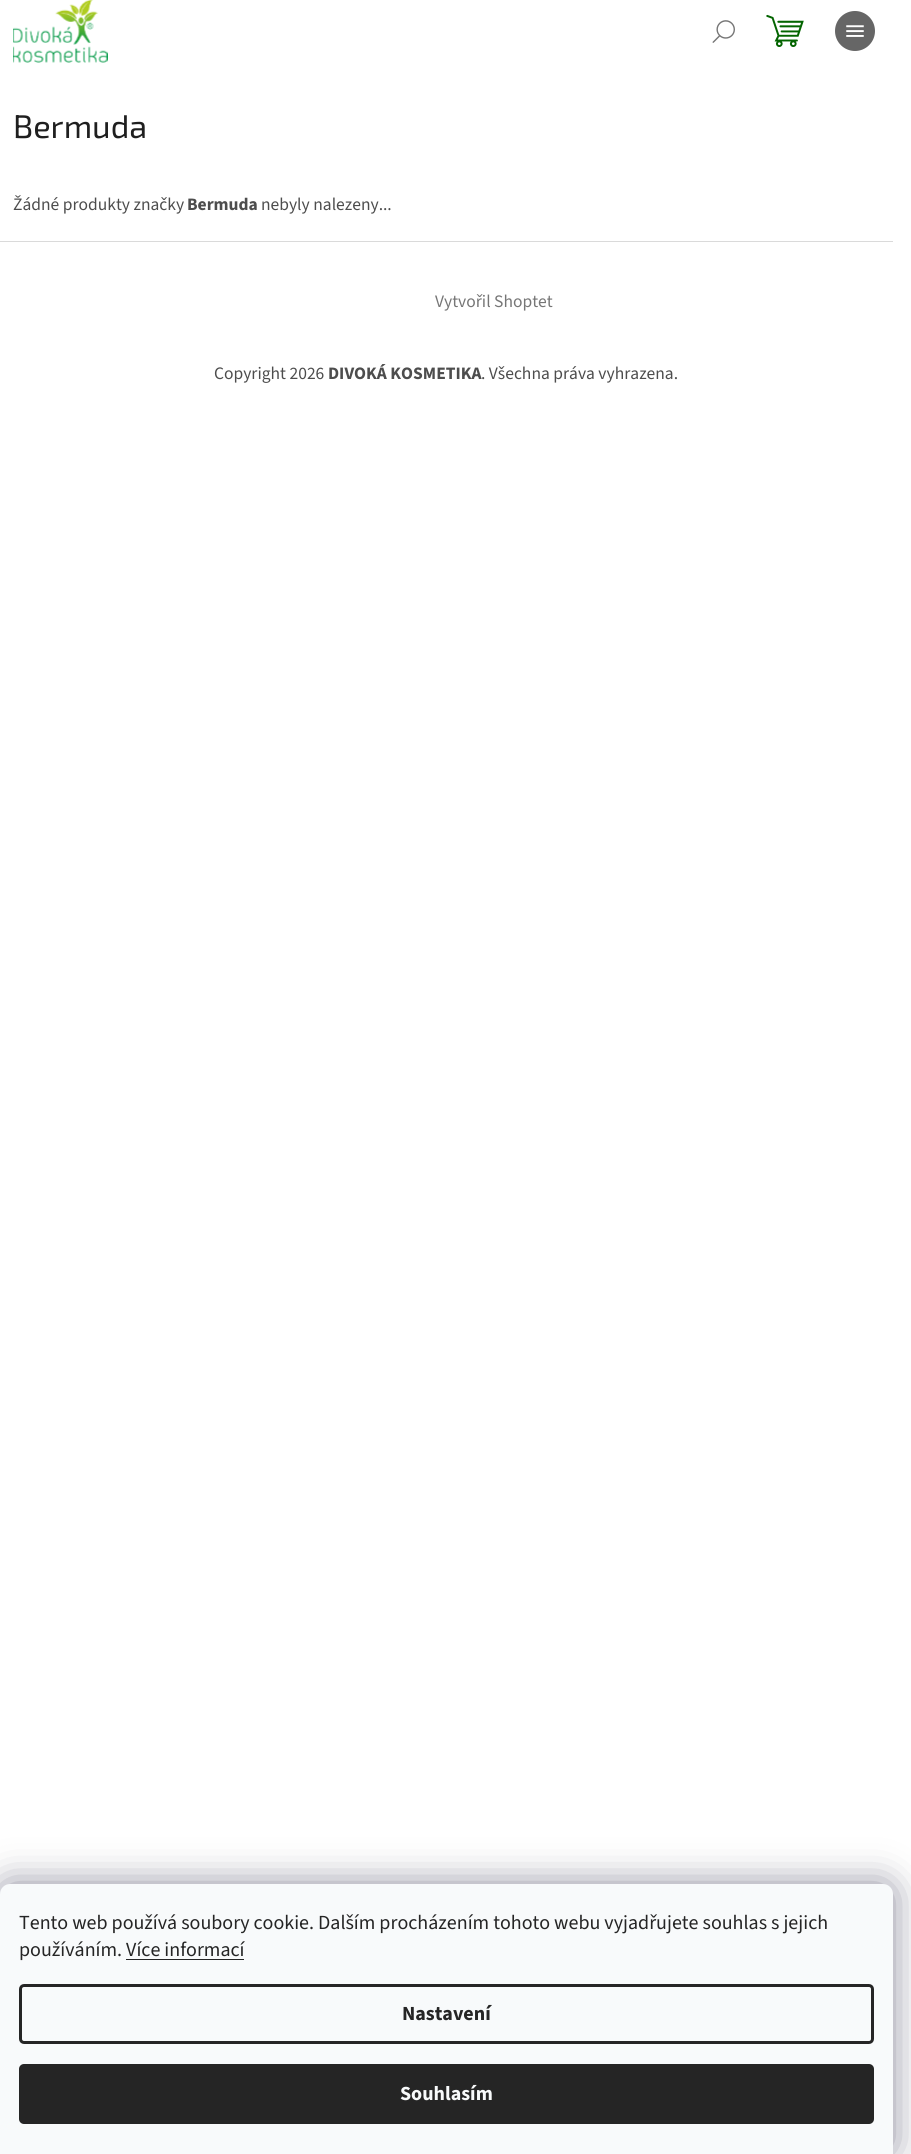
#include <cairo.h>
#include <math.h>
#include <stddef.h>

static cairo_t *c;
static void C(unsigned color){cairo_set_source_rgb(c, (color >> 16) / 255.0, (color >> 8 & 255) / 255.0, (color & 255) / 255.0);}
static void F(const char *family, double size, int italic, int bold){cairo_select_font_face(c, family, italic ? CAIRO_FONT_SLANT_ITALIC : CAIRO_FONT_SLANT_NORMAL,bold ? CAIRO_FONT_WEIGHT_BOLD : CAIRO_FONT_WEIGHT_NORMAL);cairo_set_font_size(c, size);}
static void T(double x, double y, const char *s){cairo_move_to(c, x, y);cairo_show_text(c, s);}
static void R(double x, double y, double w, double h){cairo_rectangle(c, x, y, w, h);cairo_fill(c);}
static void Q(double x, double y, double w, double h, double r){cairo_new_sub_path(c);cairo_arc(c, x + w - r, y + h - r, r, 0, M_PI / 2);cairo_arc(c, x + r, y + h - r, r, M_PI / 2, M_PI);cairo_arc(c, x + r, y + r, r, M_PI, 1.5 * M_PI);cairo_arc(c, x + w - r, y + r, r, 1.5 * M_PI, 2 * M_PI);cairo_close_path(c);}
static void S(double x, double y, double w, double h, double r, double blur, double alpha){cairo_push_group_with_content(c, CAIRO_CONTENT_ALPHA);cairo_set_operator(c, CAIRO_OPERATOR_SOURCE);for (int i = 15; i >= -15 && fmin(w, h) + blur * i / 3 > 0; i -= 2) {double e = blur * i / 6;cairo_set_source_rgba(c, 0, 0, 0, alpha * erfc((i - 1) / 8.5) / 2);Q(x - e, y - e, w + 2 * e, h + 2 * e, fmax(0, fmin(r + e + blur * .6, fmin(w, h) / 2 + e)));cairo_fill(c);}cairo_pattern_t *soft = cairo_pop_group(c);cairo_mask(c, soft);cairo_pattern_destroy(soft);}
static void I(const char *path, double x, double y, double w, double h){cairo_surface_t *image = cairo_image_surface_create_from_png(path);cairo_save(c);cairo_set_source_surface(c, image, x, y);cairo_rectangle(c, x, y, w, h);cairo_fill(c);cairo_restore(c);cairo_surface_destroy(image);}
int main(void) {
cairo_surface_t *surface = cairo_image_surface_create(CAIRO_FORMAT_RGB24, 911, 2154);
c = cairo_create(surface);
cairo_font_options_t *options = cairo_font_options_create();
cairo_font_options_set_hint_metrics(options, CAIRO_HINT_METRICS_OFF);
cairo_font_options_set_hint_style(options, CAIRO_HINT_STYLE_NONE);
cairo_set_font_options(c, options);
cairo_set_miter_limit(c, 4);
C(0xffffff);
cairo_paint(c);
I("1.png",13,0,95,63);
I("2.png",766,14,38,33);
I("3.png",712,20,23,23);
C(0x666666);
cairo_arc(c,855,31,20,0,2 * M_PI);
cairo_fill(c);
I("4.png",846,25,18,12);
F("Exo 2",32.5,0,0);
C(0x1f1f1f);
T(13,138,"Bermuda");
F("Source Sans 3",17.5,0,0);
C(0x4d4d4d);
T(13,210,"Žádné produkty značky");
F("Source Sans 3",17.5,0,1);
T(187,210,"Bermuda");
F("Source Sans 3",17.5,0,0);
T(261,210,"nebyly nalezeny...");
C(0xdadada);
R(0,241,893,1);
C(0x767676);
T(435,307,"Vytvořil Shoptet");
C(0x4d4d4d);
T(214,379,"Copyright 2026");
F("Source Sans 3",17.5,0,1);
T(328,379,"DIVOKÁ KOSMETIKA");
F("Source Sans 3",17.5,0,0);
T(481,379,". Všechna práva vyhrazena.");
C(0x1b1939);
S(0,1884,893,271,10,19,.5);
C(0xf8fafb);
cairo_new_path(c);
cairo_move_to(c,10,1884);
cairo_line_to(c,883,1884);
cairo_curve_to(c,888.5,1884,893,1888.5,893,1894);
cairo_line_to(c,893,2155);
cairo_line_to(c,0,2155);
cairo_line_to(c,0,1894);
cairo_curve_to(c,0,1888.5,4.5,1884,10,1884);
cairo_close_path(c);
cairo_fill(c);
F("Source Sans 3",20,0,0);
C(0x252525);
T(19,1929,"Tento web používá soubory cookie. Dalším procházením tohoto webu vyjadřujete souhlas s jejich");
T(19,1956,"používáním. Více informací");
R(126,1959,118,1);
Q(20.5,1985.5,852,57,3.5);
cairo_set_line_width(c,3);
cairo_stroke(c);
F("Source Sans 3",20,0,1);
T(402,2020,"Nastavení");
Q(19,2064,855,60,5);
cairo_fill(c);
C(0xf8fafb);
T(400,2100,"Souhlasím");
cairo_surface_write_to_png(surface, "o.png");
cairo_font_options_destroy(options);
cairo_destroy(c);
cairo_surface_destroy(surface);
return 0;
}
